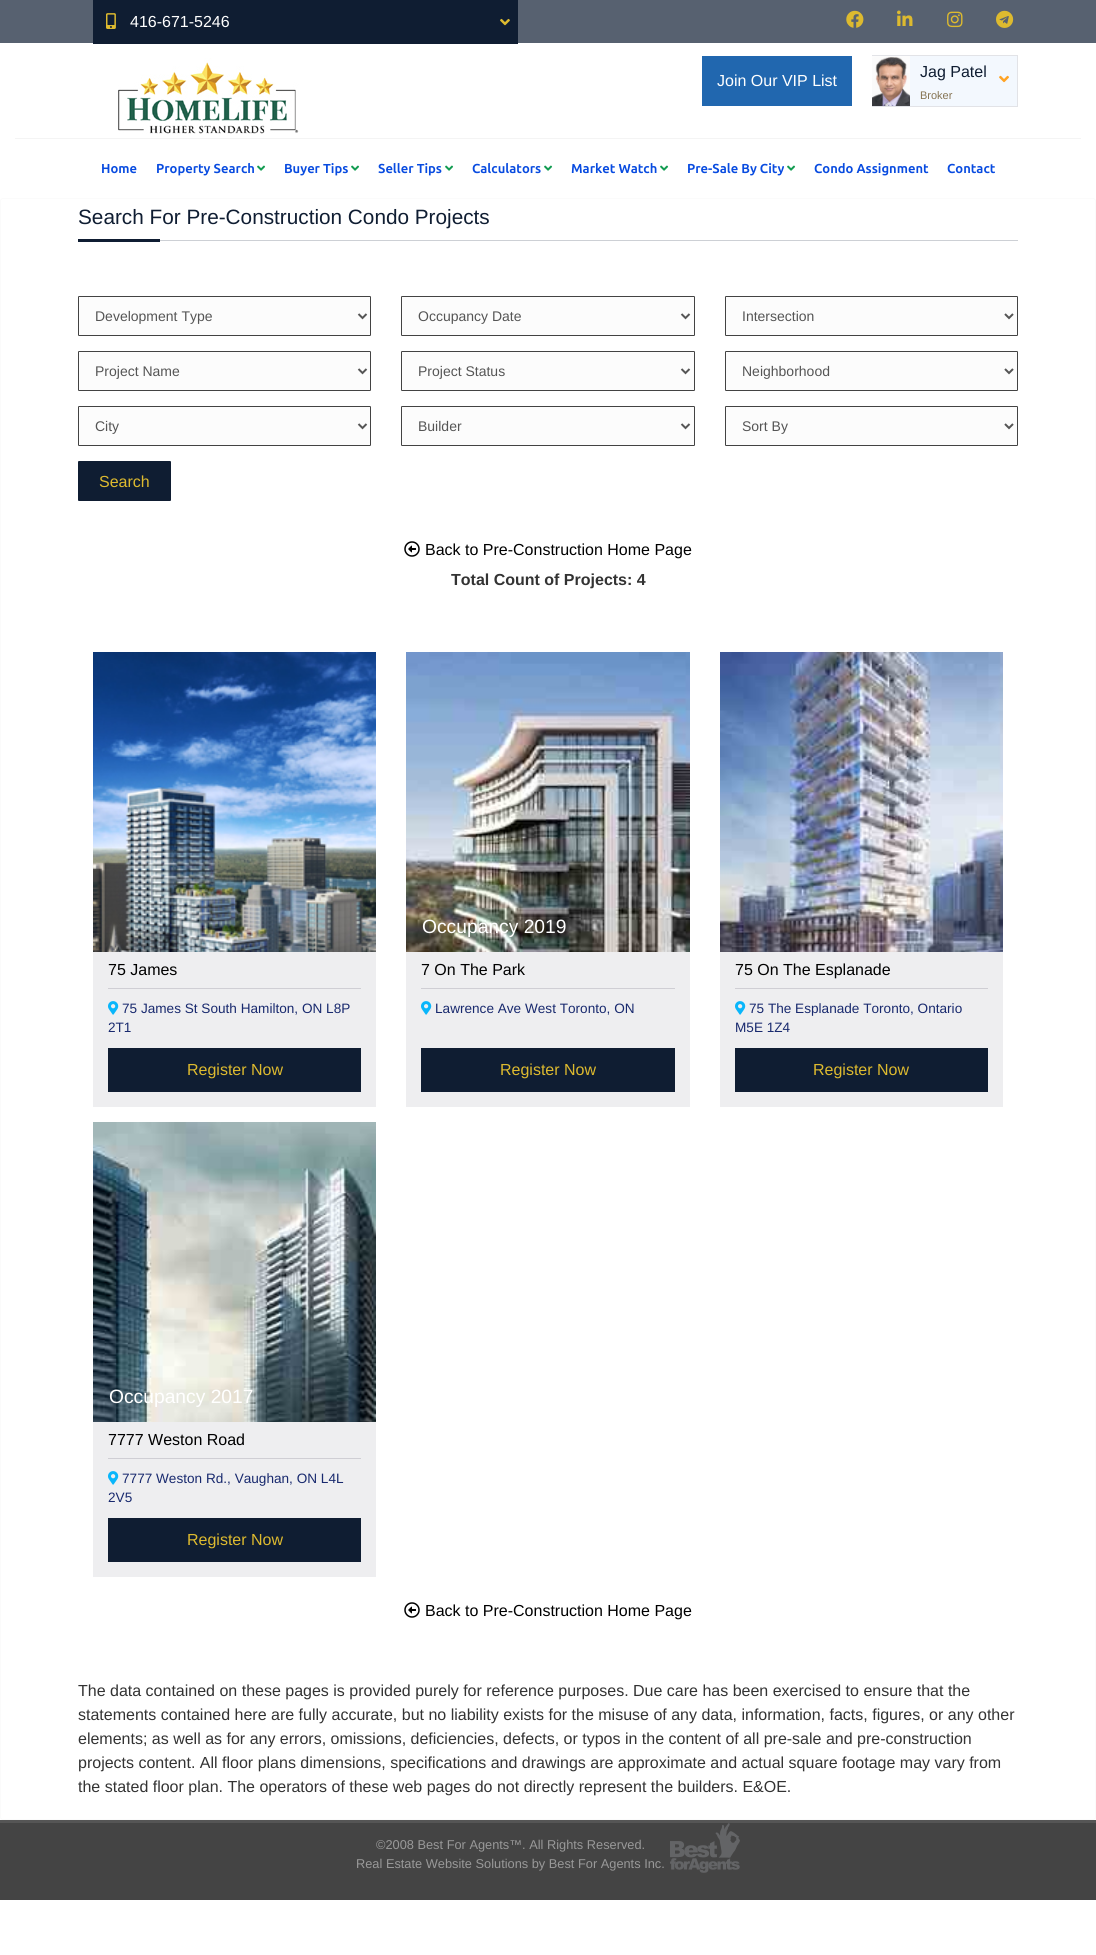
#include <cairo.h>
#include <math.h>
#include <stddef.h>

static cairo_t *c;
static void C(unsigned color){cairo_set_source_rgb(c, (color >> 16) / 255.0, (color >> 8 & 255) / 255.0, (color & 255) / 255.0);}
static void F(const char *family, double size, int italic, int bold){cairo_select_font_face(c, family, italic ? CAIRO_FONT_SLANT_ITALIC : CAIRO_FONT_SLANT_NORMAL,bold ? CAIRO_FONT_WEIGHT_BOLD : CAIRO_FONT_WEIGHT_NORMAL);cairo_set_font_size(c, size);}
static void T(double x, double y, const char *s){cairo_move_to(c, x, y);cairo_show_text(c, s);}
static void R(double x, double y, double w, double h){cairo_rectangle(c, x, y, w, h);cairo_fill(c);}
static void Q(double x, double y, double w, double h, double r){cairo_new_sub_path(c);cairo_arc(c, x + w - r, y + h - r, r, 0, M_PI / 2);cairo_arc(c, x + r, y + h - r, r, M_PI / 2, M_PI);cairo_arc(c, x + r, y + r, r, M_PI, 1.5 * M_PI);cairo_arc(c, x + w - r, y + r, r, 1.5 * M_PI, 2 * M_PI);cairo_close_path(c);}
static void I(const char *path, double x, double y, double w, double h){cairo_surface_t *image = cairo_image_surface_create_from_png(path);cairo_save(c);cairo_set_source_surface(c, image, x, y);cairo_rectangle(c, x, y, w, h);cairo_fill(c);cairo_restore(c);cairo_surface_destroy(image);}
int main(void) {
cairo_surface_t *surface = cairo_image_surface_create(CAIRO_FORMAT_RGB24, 1096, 1955);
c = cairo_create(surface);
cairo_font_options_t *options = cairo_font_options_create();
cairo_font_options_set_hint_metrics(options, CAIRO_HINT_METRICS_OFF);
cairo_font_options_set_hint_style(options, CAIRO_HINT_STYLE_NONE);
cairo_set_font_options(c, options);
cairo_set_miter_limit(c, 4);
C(0xffffff);
cairo_paint(c);
C(0x576170);
R(0,0,1096,43);
C(0x0f1d32);
R(93,0,425,44);
I("1.png",106,13,10,16);
F("Liberation Sans",16,0,0);
C(0xffffff);
T(130,27,"416-671-5246");
I("2.png",500,18,10,8);
I("3.png",846,10,18,18);
I("4.png",897,10,16,16);
I("5.png",947,11,16,17);
I("6.png",996,10,18,18);
I("7.png",118,58,181,76);
C(0x2167af);
R(702,56,150,50);
C(0xffffff);
T(717,86,"Join Our VIP List");
C(0xf3f8fe);
R(910,56,107,50);
C(0xe2e3e7);
R(872,55,146,1);
R(1017,55,1,52);
R(872,106,146,1);
I("8.png",872,56,38,50);
C(0x0f1d32);
T(920,77,"Jag Patel");
F("Liberation Sans",11,0,0);
C(0x857352);
T(920,99,"Broker");
I("9.png",999,75,10,8);
C(0xf4f4f4);
R(15,138,1066,1);
F("Ubuntu",13,0,1);
C(0x084be0);
T(101,173,"Home");
T(156,173,"Property Search");
I("10.png",257,165,9,6);
T(284,173,"Buyer Tips");
I("10.png",351,165,9,6);
T(378,173,"Seller Tips");
I("10.png",445,165,9,6);
T(472,173,"Calculators");
I("10.png",544,165,9,6);
T(571,173,"Market Watch");
I("10.png",660,165,9,6);
T(687,173,"Pre-Sale By City");
I("10.png",787,165,9,6);
T(814,173,"Condo Assignment");
T(947,173,"Contact");
Q(.5,198.5,1095,1621,2.5);
C(0xfbfbfb);
cairo_set_line_width(c,1);
cairo_stroke(c);
C(0xcdd0d5);
R(160,240,858,1);
F("Liberation Sans",20.75,0,0);
C(0x0f1d32);
T(78,224,"Search For Pre-Construction Condo Projects");
R(78,239,82,3);
C(0xfcfcfc);
Q(78.5,296.5,292,39,.5);
cairo_fill_preserve(c);
C(0x434343);
cairo_stroke(c);
cairo_new_path(c);
cairo_move_to(c,358.5,314);
cairo_line_to(c,362.5,318);
cairo_line_to(c,366.5,314);
C(0x555555);
cairo_set_line_width(c,2);
cairo_stroke(c);
F("Liberation Sans",14,0,0);
T(95,321,"Development Type");
C(0xfcfcfc);
Q(78.5,351.5,292,39,.5);
cairo_fill_preserve(c);
C(0x434343);
cairo_set_line_width(c,1);
cairo_stroke(c);
cairo_new_path(c);
cairo_move_to(c,358.5,369);
cairo_line_to(c,362.5,373);
cairo_line_to(c,366.5,369);
C(0x555555);
cairo_set_line_width(c,2);
cairo_stroke(c);
T(95,376,"Project Name");
C(0xfcfcfc);
Q(78.5,406.5,292,39,.5);
cairo_fill_preserve(c);
C(0x434343);
cairo_set_line_width(c,1);
cairo_stroke(c);
cairo_new_path(c);
cairo_move_to(c,358.5,424);
cairo_line_to(c,362.5,428);
cairo_line_to(c,366.5,424);
C(0x555555);
cairo_set_line_width(c,2);
cairo_stroke(c);
T(95,431,"City");
C(0xfcfcfc);
Q(401.5,296.5,293,39,.5);
cairo_fill_preserve(c);
C(0x434343);
cairo_set_line_width(c,1);
cairo_stroke(c);
cairo_new_path(c);
cairo_move_to(c,681.5,314);
cairo_line_to(c,685.5,318);
cairo_line_to(c,689.5,314);
C(0x555555);
cairo_set_line_width(c,2);
cairo_stroke(c);
T(418,321,"Occupancy Date");
C(0xfcfcfc);
Q(401.5,351.5,293,39,.5);
cairo_fill_preserve(c);
C(0x434343);
cairo_set_line_width(c,1);
cairo_stroke(c);
cairo_new_path(c);
cairo_move_to(c,681.5,369);
cairo_line_to(c,685.5,373);
cairo_line_to(c,689.5,369);
C(0x555555);
cairo_set_line_width(c,2);
cairo_stroke(c);
T(418,376,"Project Status");
C(0xfcfcfc);
Q(401.5,406.5,293,39,.5);
cairo_fill_preserve(c);
C(0x434343);
cairo_set_line_width(c,1);
cairo_stroke(c);
cairo_new_path(c);
cairo_move_to(c,681.5,424);
cairo_line_to(c,685.5,428);
cairo_line_to(c,689.5,424);
C(0x555555);
cairo_set_line_width(c,2);
cairo_stroke(c);
T(418,431,"Builder");
C(0xfcfcfc);
Q(725.5,296.5,292,39,.5);
cairo_fill_preserve(c);
C(0x434343);
cairo_set_line_width(c,1);
cairo_stroke(c);
cairo_new_path(c);
cairo_move_to(c,1005,314);
cairo_line_to(c,1009,318);
cairo_line_to(c,1013,314);
C(0x555555);
cairo_set_line_width(c,2);
cairo_stroke(c);
T(742,321,"Intersection");
C(0xfcfcfc);
Q(725.5,351.5,292,39,.5);
cairo_fill_preserve(c);
C(0x434343);
cairo_set_line_width(c,1);
cairo_stroke(c);
cairo_new_path(c);
cairo_move_to(c,1005,369);
cairo_line_to(c,1009,373);
cairo_line_to(c,1013,369);
C(0x555555);
cairo_set_line_width(c,2);
cairo_stroke(c);
T(742,376,"Neighborhood");
C(0xfcfcfc);
Q(725.5,406.5,292,39,.5);
cairo_fill_preserve(c);
C(0x434343);
cairo_set_line_width(c,1);
cairo_stroke(c);
cairo_new_path(c);
cairo_move_to(c,1005,424);
cairo_line_to(c,1009,428);
cairo_line_to(c,1013,424);
C(0x555555);
cairo_set_line_width(c,2);
cairo_stroke(c);
T(742,431,"Sort By");
C(0x0f1d32);
Q(78.5,461.5,92,39,.5);
cairo_fill_preserve(c);
cairo_set_line_width(c,1);
cairo_stroke(c);
F("Liberation Sans",16,0,0);
C(0xddba2f);
T(99,487,"Search");
I("11.png",404,541,16,16);
C(0x000000);
T(425,555,"Back to Pre-Construction Home Page");
F("Liberation Sans",16,0,1);
C(0x333333);
T(451,585,"Total Count of Projects: 4");
I("12.png",93,652,283,300);
C(0xeeeef0);
R(93,952,283,155);
C(0xcfced4);
R(108,988,253,1);
F("Liberation Sans",16,0,0);
C(0x000000);
T(108,975,"75 James");
I("13.png",108,1001,11,14);
F("Liberation Sans",13.6,0,0);
C(0x18296e);
T(122,1013,"75 James St South Hamilton, ON L8P");
T(108,1032,"2T1");
C(0x0f1d32);
R(108,1048,253,44);
F("Liberation Sans",16,0,0);
C(0xddba2f);
T(187,1075,"Register Now");
I("14.png",406,652,284,300);
F("Liberation Sans",19.25,0,0);
C(0xffffff);
T(422,933,"Occupancy 2019");
C(0xeeeef0);
R(406,952,284,155);
C(0xcfced4);
R(421,988,254,1);
F("Liberation Sans",16,0,0);
C(0x000000);
T(421,975,"7 On The Park");
I("13.png",421,1001,11,14);
F("Liberation Sans",13.6,0,0);
C(0x18296e);
T(435,1013,"Lawrence Ave West Toronto, ON");
C(0x0f1d32);
R(421,1048,254,44);
F("Liberation Sans",16,0,0);
C(0xddba2f);
T(500,1075,"Register Now");
I("15.png",720,652,283,300);
C(0xeeeef0);
R(720,952,283,155);
C(0xcfced4);
R(735,988,253,1);
C(0x000000);
T(735,975,"75 On The Esplanade");
I("13.png",735,1001,11,14);
F("Liberation Sans",13.6,0,0);
C(0x18296e);
T(749,1013,"75 The Esplanade Toronto, Ontario");
T(735,1032,"M5E 1Z4");
C(0x0f1d32);
R(735,1048,253,44);
F("Liberation Sans",16,0,0);
C(0xddba2f);
T(813,1075,"Register Now");
I("16.png",93,1122,283,300);
F("Liberation Sans",19.25,0,0);
C(0xffffff);
T(109,1403,"Occupancy 2017");
C(0xeeeef0);
R(93,1422,283,155);
C(0xcfced4);
R(108,1458,253,1);
F("Liberation Sans",16,0,0);
C(0x000000);
T(108,1445,"7777 Weston Road");
I("13.png",108,1471,11,14);
F("Liberation Sans",13.6,0,0);
C(0x18296e);
T(122,1483,"7777 Weston Rd., Vaughan, ON L4L");
T(108,1502,"2V5");
C(0x0f1d32);
R(108,1518,253,44);
F("Liberation Sans",16,0,0);
C(0xddba2f);
T(187,1545,"Register Now");
I("11.png",404,1602,16,16);
C(0x000000);
T(425,1616,"Back to Pre-Construction Home Page");
C(0x333333);
T(78,1696,"The data contained on these pages is provided purely for reference purposes. Due care has been exercised to ensure that the");
T(78,1720,"statements contained here are fully accurate, but no liability exists for the misuse of any data, information, facts, figures, or any other");
T(78,1744,"elements; as well as for any errors, omissions, deficiencies, defects, or typos in the content of all pre-sale and pre-construction");
T(78,1768,"projects content. All floor plans dimensions, specifications and drawings are approximate and actual square footage may vary from");
T(78,1792,"the stated floor plan. The operators of these web pages do not directly represent the builders. E&OE.");
C(0x555555);
R(0,1820,1096,3);
C(0x444444);
R(0,1823,1096,77);
F("Liberation Sans",12.8,0,0);
C(0x999999);
T(376,1849,"©2008 Best For Agents™. All Rights Reserved.");
T(356,1868,"Real Estate Website Solutions by Best For Agents Inc.");
I("17.png",670,1823,70,50);
cairo_surface_write_to_png(surface, "o.png");
cairo_font_options_destroy(options);
cairo_destroy(c);
cairo_surface_destroy(surface);
return 0;
}
